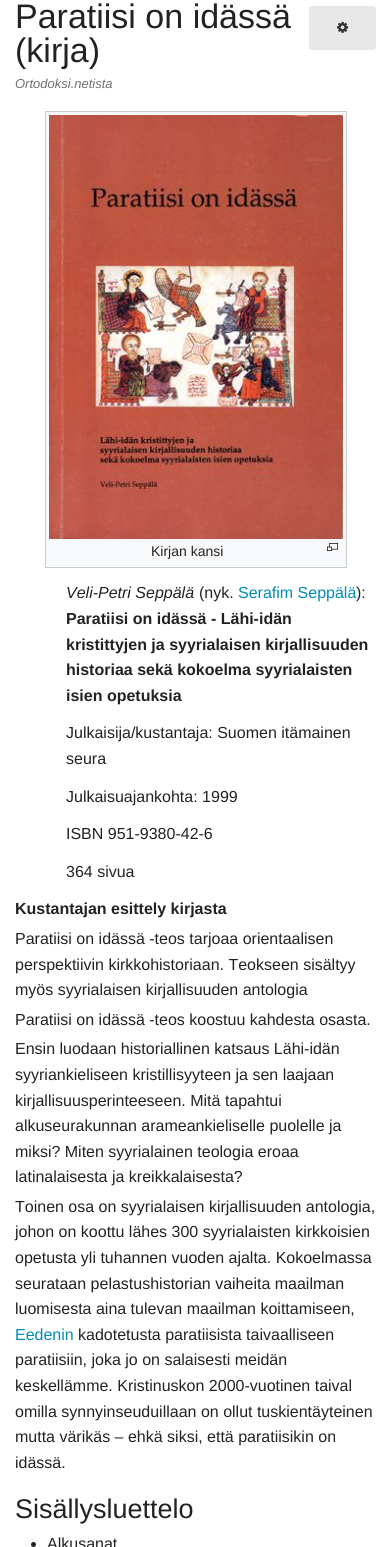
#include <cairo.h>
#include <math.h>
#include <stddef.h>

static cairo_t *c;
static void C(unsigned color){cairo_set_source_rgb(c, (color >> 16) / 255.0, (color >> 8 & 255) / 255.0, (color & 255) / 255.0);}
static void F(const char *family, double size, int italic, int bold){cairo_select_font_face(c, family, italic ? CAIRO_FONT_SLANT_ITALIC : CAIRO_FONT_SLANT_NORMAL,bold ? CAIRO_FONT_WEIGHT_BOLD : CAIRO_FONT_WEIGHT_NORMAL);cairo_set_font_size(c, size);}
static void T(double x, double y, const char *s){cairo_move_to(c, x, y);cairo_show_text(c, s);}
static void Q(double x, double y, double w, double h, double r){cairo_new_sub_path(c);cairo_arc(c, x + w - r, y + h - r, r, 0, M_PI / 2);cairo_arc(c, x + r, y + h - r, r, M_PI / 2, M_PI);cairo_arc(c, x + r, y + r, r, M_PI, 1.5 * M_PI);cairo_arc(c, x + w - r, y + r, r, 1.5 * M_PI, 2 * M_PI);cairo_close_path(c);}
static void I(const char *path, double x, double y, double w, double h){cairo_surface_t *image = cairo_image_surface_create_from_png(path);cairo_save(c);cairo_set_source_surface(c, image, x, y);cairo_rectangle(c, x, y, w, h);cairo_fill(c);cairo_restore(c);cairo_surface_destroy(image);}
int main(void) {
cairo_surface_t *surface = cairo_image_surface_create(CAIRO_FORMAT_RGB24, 391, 1547);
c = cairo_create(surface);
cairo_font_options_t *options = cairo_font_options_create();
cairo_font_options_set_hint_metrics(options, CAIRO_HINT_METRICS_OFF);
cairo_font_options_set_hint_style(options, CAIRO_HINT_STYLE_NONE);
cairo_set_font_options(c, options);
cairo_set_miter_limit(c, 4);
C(0xffffff);
cairo_paint(c);
F("Liberation Sans",34,0,0);
C(0x222222);
T(15,28,"Paratiisi on idässä");
T(15,62,"(kirja)");
F("Liberation Sans",13,1,0);
C(0x6f6f6f);
T(15,88,"Ortodoksi.netista");
C(0xf8f9fa);
cairo_rectangle(c,45.5,111.5,301,456);
cairo_fill_preserve(c);
C(0xc8ccd1);
cairo_set_line_width(c,1);
cairo_stroke(c);
I("1.png",49,115,294,424);
F("Liberation Sans",14,0,0);
C(0x222222);
T(151,556,"Kirjan kansi");
I("2.png",327,543,11,8);
F("Liberation Sans",16,1,0);
T(66,598,"Veli-Petri Seppälä");
F("Liberation Sans",16,0,0);
T(199,598,"(nyk.");
C(0x008cba);
T(238,598,"Serafim Seppälä");
C(0x222222);
T(356,598,"):");
F("Liberation Sans",16,0,1);
T(66,624,"Paratiisi on idässä - Lähi-idän");
T(66,650,"kristittyjen ja syyrialaisen kirjallisuuden");
T(66,675,"historiaa sekä kokoelma syyrialaisten");
T(66,701,"isien opetuksia");
F("Liberation Sans",16,0,0);
T(66,738,"Julkaisija/kustantaja: Suomen itämainen");
T(66,764,"seura");
T(66,802,"Julkaisuajankohta: 1999");
T(66,839,"ISBN 951-9380-42-6");
T(66,877,"364 sivua");
F("Liberation Sans",16,0,1);
T(15,914,"Kustantajan esittely kirjasta");
F("Liberation Sans",16,0,0);
T(15,944,"Paratiisi on idässä -teos tarjoaa orientaalisen");
T(15,970,"perspektiivin kirkkohistoriaan. Teokseen sisältyy");
T(15,995,"myös syyrialaisen kirjallisuuden antologia");
T(15,1025,"Paratiisi on idässä -teos koostuu kahdesta osasta.");
T(15,1054,"Ensin luodaan historiallinen katsaus Lähi-idän");
T(15,1080,"syyriankieliseen kristillisyyteen ja sen laajaan");
T(15,1106,"kirjallisuusperinteeseen. Mitä tapahtui");
T(15,1131,"alkuseurakunnan arameankieliselle puolelle ja");
T(15,1157,"miksi? Miten syyrialainen teologia eroaa");
T(15,1182,"latinalaisesta ja kreikkalaisesta?");
T(15,1212,"Toinen osa on syyrialaisen kirjallisuuden antologia,");
T(15,1237,"johon on koottu lähes 300 syyrialaisten kirkkoisien");
T(15,1263,"opetusta yli tuhannen vuoden ajalta. Kokoelmassa");
T(15,1289,"seurataan pelastushistorian vaiheita maailman");
T(15,1314,"luomisesta aina tulevan maailman koittamiseen,");
C(0x008cba);
T(15,1340,"Eedenin");
C(0x222222);
T(78,1340,"kadotetusta paratiisista taivaalliseen");
T(15,1365,"paratiisiin, joka jo on salaisesti meidän");
T(15,1391,"keskellämme. Kristinuskon 2000-vuotinen taival");
T(15,1417,"omilla synnyinseuduillaan on ollut tuskientäyteinen");
T(15,1442,"mutta värikäs – ehkä siksi, että paratiisikin on");
T(15,1468,"idässä.");
F("Liberation Sans",27,0,0);
T(15,1518,"Sisällysluettelo");
cairo_new_path(c);
cairo_arc(c,33.5,1544.5,2.5,0,2 * M_PI);
cairo_fill(c);
F("Liberation Sans",16,0,0);
T(47,1549,"Alkusanat");
C(0xe7e7e7);
Q(309,6,67,44,3);
cairo_fill(c);
I("3.png",337,21,12,12);
cairo_surface_write_to_png(surface, "o.png");
cairo_font_options_destroy(options);
cairo_destroy(c);
cairo_surface_destroy(surface);
return 0;
}
